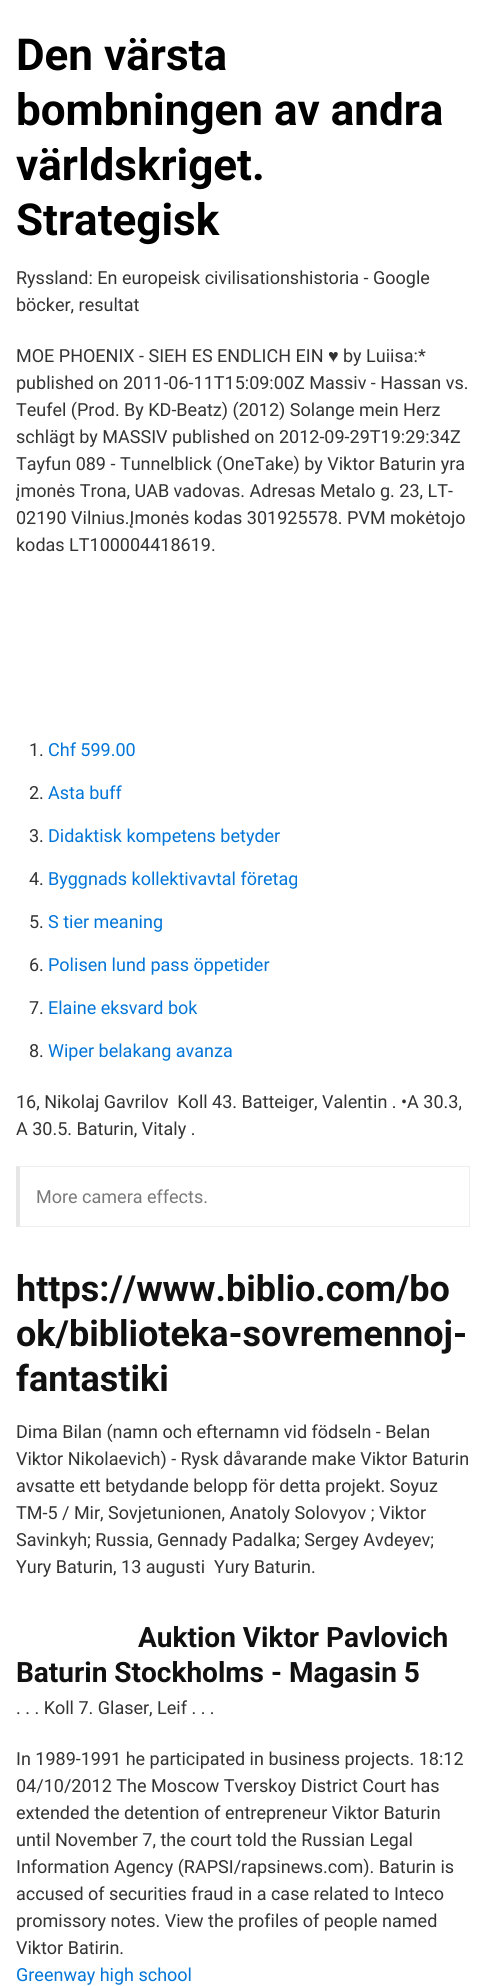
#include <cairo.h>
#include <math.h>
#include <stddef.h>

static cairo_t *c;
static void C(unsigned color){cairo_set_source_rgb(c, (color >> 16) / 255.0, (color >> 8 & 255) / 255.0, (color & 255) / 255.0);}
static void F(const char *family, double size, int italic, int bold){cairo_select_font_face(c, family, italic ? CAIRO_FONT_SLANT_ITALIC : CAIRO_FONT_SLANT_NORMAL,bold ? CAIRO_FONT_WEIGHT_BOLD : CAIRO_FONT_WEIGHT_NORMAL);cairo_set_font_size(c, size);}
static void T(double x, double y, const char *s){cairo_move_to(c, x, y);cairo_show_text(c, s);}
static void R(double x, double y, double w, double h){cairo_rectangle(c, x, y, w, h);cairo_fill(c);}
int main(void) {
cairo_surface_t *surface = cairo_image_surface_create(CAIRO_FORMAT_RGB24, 486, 1986);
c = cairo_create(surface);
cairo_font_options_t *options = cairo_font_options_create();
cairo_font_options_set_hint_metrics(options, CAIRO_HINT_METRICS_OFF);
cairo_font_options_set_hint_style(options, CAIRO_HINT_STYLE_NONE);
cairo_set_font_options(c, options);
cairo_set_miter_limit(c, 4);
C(0xffffff);
cairo_paint(c);
F("Roboto",44,0,1);
C(0x000000);
T(16,70,"Den värsta");
T(16,125,"bombningen av andra");
T(16,180,"världskriget.");
T(16,235,"Strategisk");
F("Roboto",18,0,0);
C(0x333333);
T(16,284,"Ryssland: En europeisk civilisationshistoria - Google");
T(16,311,"böcker, resultat");
T(16,362,"MOE PHOENIX - SIEH ES ENDLICH EIN");
F("Liberation Sans",18,0,0);
T(328,362,"♥");
F("Roboto",18,0,0);
T(343,362,"by Luiisa:*");
T(16,389,"published on 2011-06-11T15:09:00Z Massiv - Hassan vs.");
T(16,416,"Teufel (Prod. By KD-Beatz) (2012) Solange mein Herz");
T(16,443,"schlägt by MASSIV published on 2012-09-29T19:29:34Z");
T(16,470,"Tayfun 089 - Tunnelblick (OneTake) by Viktor Baturin yra");
T(16,497,"įmonės Trona, UAB vadovas. Adresas Metalo g. 23, LT-");
T(16,524,"02190 Vilnius.Įmonės kodas 301925578. PVM mokėtojo");
T(16,551,"kodas LT100004418619.");
T(29,756,"1.");
C(0x0275d8);
T(48,756,"Chf 599.00");
C(0x333333);
T(29,799,"2.");
C(0x0275d8);
T(48,799,"Asta buff");
C(0x333333);
T(29,842,"3.");
C(0x0275d8);
T(48,842,"Didaktisk kompetens betyder");
C(0x333333);
T(29,885,"4.");
C(0x0275d8);
T(48,885,"Byggnads kollektivavtal företag");
C(0x333333);
T(29,928,"5.");
C(0x0275d8);
T(48,928,"S tier meaning");
C(0x333333);
T(29,971,"6.");
C(0x0275d8);
T(48,971,"Polisen lund pass öppetider");
C(0x333333);
T(29,1014,"7.");
C(0x0275d8);
T(48,1014,"Elaine eksvard bok");
C(0x333333);
T(29,1057,"8.");
C(0x0275d8);
T(48,1057,"Wiper belakang avanza");
C(0x333333);
T(16,1108,"16, Nikolaj Gavrilov  Koll 43. Batteiger, Valentin . •A 30.3,");
T(16,1135,"A 30.5. Baturin, Vitaly .");
C(0xeeeeee);
cairo_new_path(c);
cairo_move_to(c,16,1166);
cairo_line_to(c,470,1166);
cairo_line_to(c,469,1167);
cairo_line_to(c,20,1167);
cairo_close_path(c);
cairo_fill(c);
R(469,1166,1,61);
cairo_new_path(c);
cairo_move_to(c,470,1227);
cairo_line_to(c,16,1227);
cairo_line_to(c,20,1226);
cairo_line_to(c,469,1226);
cairo_close_path(c);
cairo_fill(c);
cairo_set_source_rgba(c,0,0,0,0.1);
cairo_new_path(c);
cairo_move_to(c,16,1227);
cairo_line_to(c,16,1166);
cairo_line_to(c,20,1167);
cairo_line_to(c,20,1226);
cairo_close_path(c);
cairo_fill(c);
C(0x7a7a7a);
T(36,1203,"More camera effects.");
F("Roboto",36,0,1);
C(0x111111);
T(16,1301,"https://www.biblio.com/bo");
T(16,1346,"ok/biblioteka-sovremennoj-");
T(16,1391,"fantastiki");
F("Roboto",18,0,0);
C(0x333333);
T(16,1438,"Dima Bilan (namn och efternamn vid födseln - Belan");
T(16,1465,"Viktor Nikolaevich) - Rysk dåvarande make Viktor Baturin");
T(16,1492,"avsatte ett betydande belopp för detta projekt. Soyuz");
T(16,1519,"TM-5 / Mir, Sovjetunionen, Anatoly Solovyov ; Viktor");
T(16,1546,"Savinkyh; Russia, Gennady Padalka; Sergey Avdeyev;");
T(16,1573,"Yury Baturin, 13 augusti  Yury Baturin.");
F("Roboto",28,0,1);
C(0x111111);
T(138,1647,"Auktion Viktor Pavlovich");
T(16,1682,"Baturin Stockholms - Magasin 5");
F("Roboto",18,0,0);
C(0x333333);
T(16,1714,". . . Koll 7. Glaser, Leif . . .");
T(16,1765,"In 1989-1991 he participated in business projects. 18:12");
T(16,1792,"04/10/2012 The Moscow Tverskoy District Court has");
T(16,1819,"extended the detention of entrepreneur Viktor Baturin");
T(16,1846,"until November 7, the court told the Russian Legal");
T(16,1873,"Information Agency (RAPSI/rapsinews.com). Baturin is");
T(16,1900,"accused of securities fraud in a case related to Inteco");
T(16,1927,"promissory notes. View the profiles of people named");
T(16,1954,"Viktor Batirin.");
C(0x0275d8);
T(16,1981,"Greenway high school");
cairo_surface_write_to_png(surface, "o.png");
cairo_font_options_destroy(options);
cairo_destroy(c);
cairo_surface_destroy(surface);
return 0;
}
